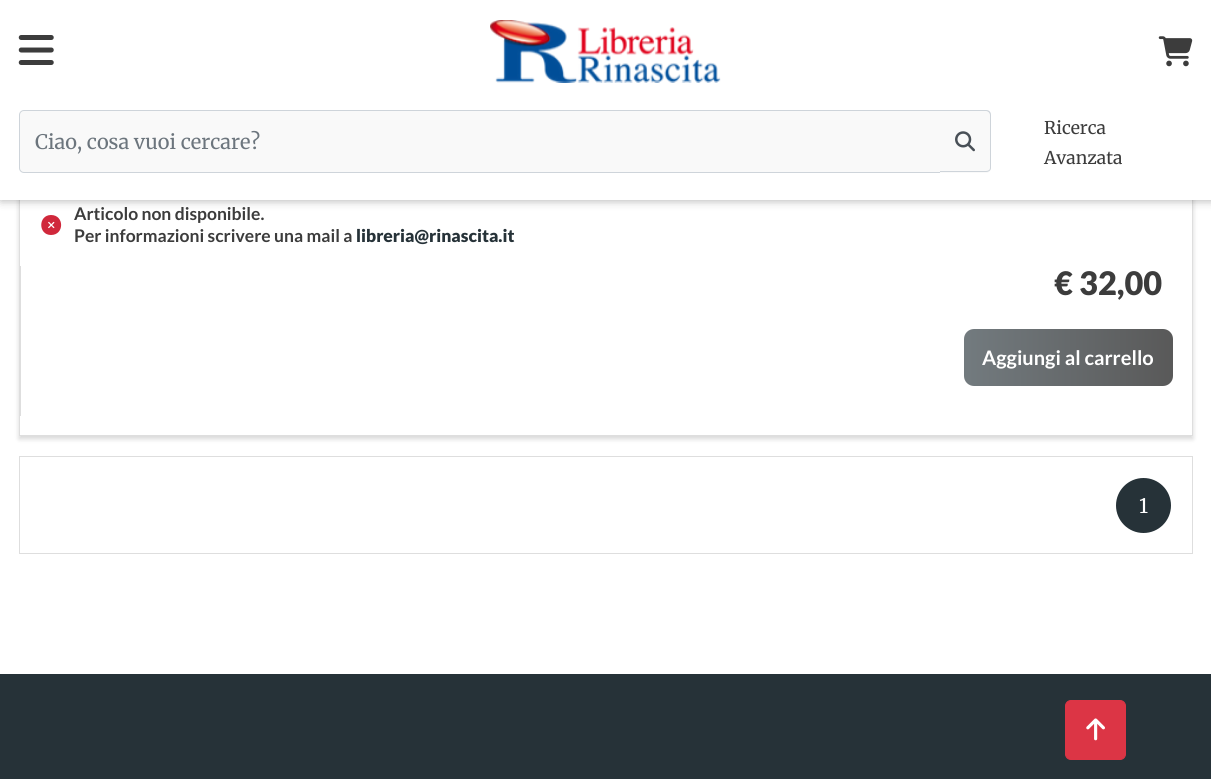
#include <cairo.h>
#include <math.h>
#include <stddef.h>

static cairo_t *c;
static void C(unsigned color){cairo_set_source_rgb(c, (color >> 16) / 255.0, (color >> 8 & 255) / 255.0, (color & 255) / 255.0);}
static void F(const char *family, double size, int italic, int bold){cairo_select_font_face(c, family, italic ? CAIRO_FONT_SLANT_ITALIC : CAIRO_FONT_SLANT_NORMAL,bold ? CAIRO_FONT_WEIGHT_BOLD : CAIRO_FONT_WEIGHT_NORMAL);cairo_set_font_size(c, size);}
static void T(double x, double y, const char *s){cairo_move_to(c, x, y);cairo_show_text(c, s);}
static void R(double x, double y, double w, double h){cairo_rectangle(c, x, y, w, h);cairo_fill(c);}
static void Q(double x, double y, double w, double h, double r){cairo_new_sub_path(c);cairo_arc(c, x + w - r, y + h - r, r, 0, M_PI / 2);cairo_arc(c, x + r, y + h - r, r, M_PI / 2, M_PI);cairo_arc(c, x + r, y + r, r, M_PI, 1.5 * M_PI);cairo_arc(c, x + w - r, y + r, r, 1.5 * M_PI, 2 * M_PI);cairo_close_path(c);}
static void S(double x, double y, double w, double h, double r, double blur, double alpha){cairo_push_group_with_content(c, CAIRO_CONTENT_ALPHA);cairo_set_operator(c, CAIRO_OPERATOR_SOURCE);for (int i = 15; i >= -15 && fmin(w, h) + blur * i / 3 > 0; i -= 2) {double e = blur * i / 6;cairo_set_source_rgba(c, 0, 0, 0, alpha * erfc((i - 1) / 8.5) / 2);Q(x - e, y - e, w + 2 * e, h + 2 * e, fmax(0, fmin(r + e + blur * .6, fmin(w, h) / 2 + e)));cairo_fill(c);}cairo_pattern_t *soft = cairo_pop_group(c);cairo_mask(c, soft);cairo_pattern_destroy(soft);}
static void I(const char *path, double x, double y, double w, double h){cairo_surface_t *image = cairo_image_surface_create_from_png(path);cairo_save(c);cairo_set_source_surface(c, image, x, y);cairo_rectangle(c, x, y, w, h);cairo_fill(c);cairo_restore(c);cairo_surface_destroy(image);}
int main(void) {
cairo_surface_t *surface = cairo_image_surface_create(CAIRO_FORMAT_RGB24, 1211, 779);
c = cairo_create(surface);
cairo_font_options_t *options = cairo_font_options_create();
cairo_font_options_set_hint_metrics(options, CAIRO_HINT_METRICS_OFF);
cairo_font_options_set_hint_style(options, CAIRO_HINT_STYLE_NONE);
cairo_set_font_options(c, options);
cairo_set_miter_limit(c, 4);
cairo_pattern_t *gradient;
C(0xffffff);
cairo_paint(c);
cairo_save(c);
cairo_set_fill_rule(c,CAIRO_FILL_RULE_EVEN_ODD);
cairo_new_path(c);
cairo_move_to(c,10,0);
cairo_line_to(c,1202,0);
cairo_line_to(c,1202,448);
cairo_line_to(c,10,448);
cairo_close_path(c);
cairo_move_to(c,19,-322);
cairo_line_to(c,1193,-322);
cairo_line_to(c,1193,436);
cairo_line_to(c,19,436);
cairo_close_path(c);
cairo_clip(c);
C(0x000000);
S(19,-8,1174,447,0,2.5,.16);
cairo_restore(c);
cairo_rectangle(c,19.5,-.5,1173,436);
C(0xdedede);
cairo_set_line_width(c,1);
cairo_stroke(c);
C(0xd0283b);
cairo_new_path(c);
cairo_move_to(c,51,235);
cairo_curve_to(c,64.5,235,64.5,215,51,215);
cairo_curve_to(c,38,215,38,235,51,235);
cairo_close_path(c);
cairo_fill(c);
C(0x000000);
S(1,0,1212,200,0,5,.34);
C(0xffffff);
R(0,0,1211,200);
I("1.png",18,35,36,30);
I("2.png",490,20,231,63);
I("3.png",1158,36,35,31);
C(0xf9f9f9);
cairo_new_path(c);
cairo_move_to(c,24,110.5);
cairo_line_to(c,940.5,110.5);
cairo_line_to(c,940.5,172.5);
cairo_line_to(c,24,172.5);
cairo_curve_to(c,21.5,172.5,19.5,170.5,19.5,168);
cairo_line_to(c,19.5,115);
cairo_curve_to(c,19.5,112.5,21.5,110.5,24,110.5);
cairo_close_path(c);
cairo_fill_preserve(c);
C(0xced4da);
cairo_stroke(c);
F("Merriweather",20,0,0);
C(0x6c757d);
T(35,149,"Ciao, cosa vuoi cercare?");
C(0xf9f9f9);
cairo_new_path(c);
cairo_move_to(c,940,110);
cairo_line_to(c,986,110);
cairo_curve_to(c,989,110,991,112,991,115);
cairo_line_to(c,991,168);
cairo_curve_to(c,991,171,989,173,986,173);
cairo_line_to(c,940,173);
cairo_close_path(c);
cairo_fill(c);
C(0xced4da);
cairo_set_fill_rule(c,CAIRO_FILL_RULE_EVEN_ODD);
cairo_new_path(c);
cairo_move_to(c,940,110);
cairo_line_to(c,986,110);
cairo_curve_to(c,989,110,991,112,991,115);
cairo_line_to(c,991,168);
cairo_curve_to(c,991,170,989,172,986,172);
cairo_line_to(c,940,172);
cairo_close_path(c);
cairo_move_to(c,940,111);
cairo_line_to(c,986,111);
cairo_curve_to(c,988,111,990,113,990,115);
cairo_line_to(c,990,168);
cairo_curve_to(c,990,170,988,171,986,171);
cairo_line_to(c,940,171);
cairo_close_path(c);
cairo_fill(c);
I("4.png",955,131,20,21);
F("Merriweather",17.5,0,0);
C(0x3c3c3c);
T(1044,134,"Ricerca");
T(1044,164,"Avanzata");
I("5.png",48,221,7,8);
F("Lato",17.5,0,1);
T(74,220,"Articolo non disponibile.");
T(74,242,"Per informazioni scrivere una mail a");
F("Lato Black",17.5,0,0);
C(0x263238);
T(356,242,"libreria@rinascita.it");
C(0xdedede);
R(20,266,1,150);
F("Lato Black",32.5,0,0);
C(0x3c3c3c);
T(1054,295,"€ 32,00");
gradient = cairo_pattern_create_linear(964,358,1173,357);
cairo_pattern_add_color_stop_rgba(gradient,.02,0.447,0.478,0.494,1);
cairo_pattern_add_color_stop_rgba(gradient,1,0.349,0.349,0.349,1);
cairo_set_source(c,gradient);
cairo_pattern_destroy(gradient);
Q(964,329,209,57,10);
cairo_fill(c);
F("Lato",20,0,1);
C(0xffffff);
T(982,365,"Aggiungi al carrello");
cairo_rectangle(c,19.5,456.5,1173,97);
C(0xdedede);
cairo_stroke(c);
C(0x263238);
cairo_arc(c,1143.5,505.5,27.5,0,2 * M_PI);
cairo_fill(c);
F("Merriweather",20,0,0);
C(0xffffff);
T(1139,513,"1");
C(0x263238);
R(0,674,1211,105);
C(0xdc3545);
Q(1065.5,700.5,60,59,5.5);
cairo_fill_preserve(c);
cairo_stroke(c);
I("6.png",1086,718,19,23);
cairo_surface_write_to_png(surface, "o.png");
cairo_font_options_destroy(options);
cairo_destroy(c);
cairo_surface_destroy(surface);
return 0;
}
